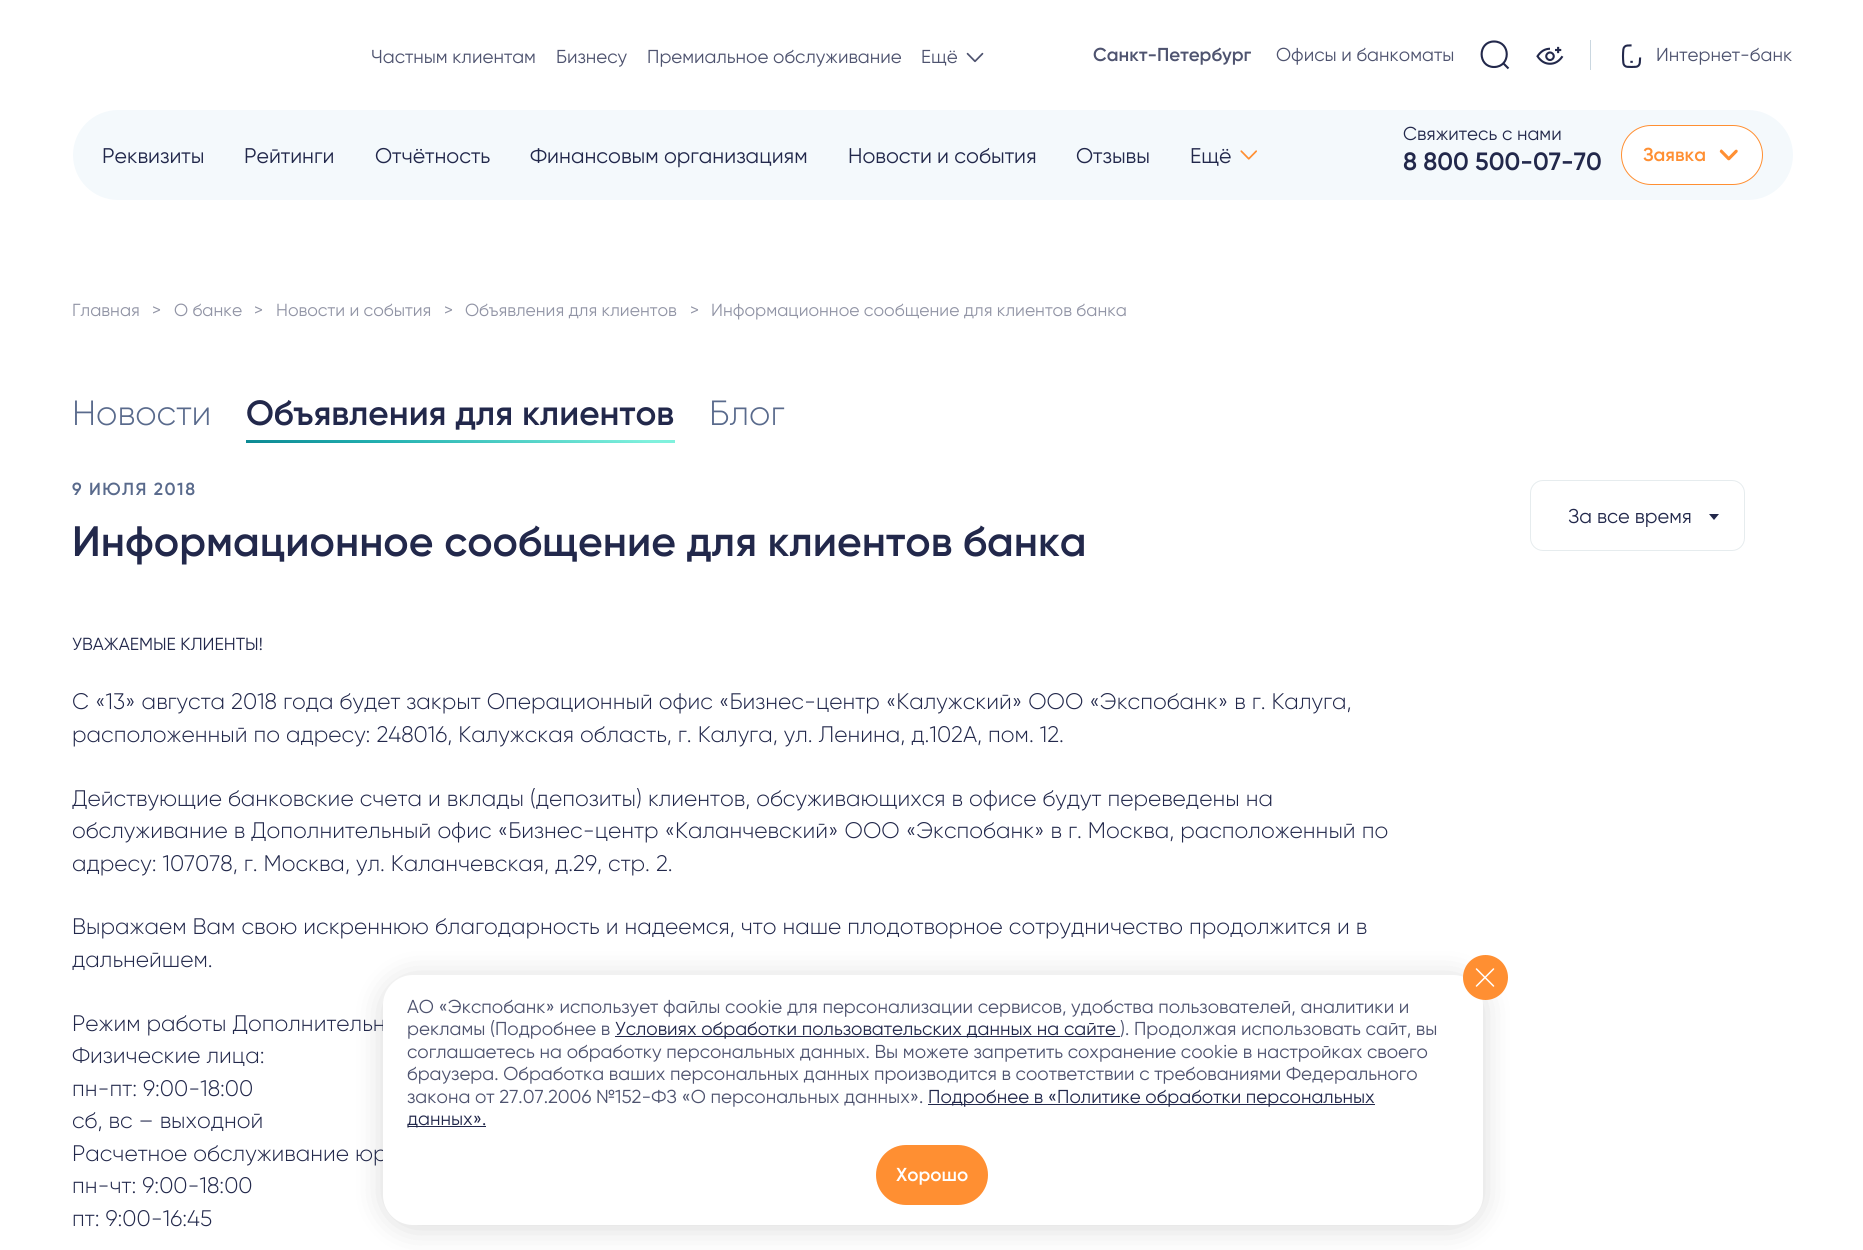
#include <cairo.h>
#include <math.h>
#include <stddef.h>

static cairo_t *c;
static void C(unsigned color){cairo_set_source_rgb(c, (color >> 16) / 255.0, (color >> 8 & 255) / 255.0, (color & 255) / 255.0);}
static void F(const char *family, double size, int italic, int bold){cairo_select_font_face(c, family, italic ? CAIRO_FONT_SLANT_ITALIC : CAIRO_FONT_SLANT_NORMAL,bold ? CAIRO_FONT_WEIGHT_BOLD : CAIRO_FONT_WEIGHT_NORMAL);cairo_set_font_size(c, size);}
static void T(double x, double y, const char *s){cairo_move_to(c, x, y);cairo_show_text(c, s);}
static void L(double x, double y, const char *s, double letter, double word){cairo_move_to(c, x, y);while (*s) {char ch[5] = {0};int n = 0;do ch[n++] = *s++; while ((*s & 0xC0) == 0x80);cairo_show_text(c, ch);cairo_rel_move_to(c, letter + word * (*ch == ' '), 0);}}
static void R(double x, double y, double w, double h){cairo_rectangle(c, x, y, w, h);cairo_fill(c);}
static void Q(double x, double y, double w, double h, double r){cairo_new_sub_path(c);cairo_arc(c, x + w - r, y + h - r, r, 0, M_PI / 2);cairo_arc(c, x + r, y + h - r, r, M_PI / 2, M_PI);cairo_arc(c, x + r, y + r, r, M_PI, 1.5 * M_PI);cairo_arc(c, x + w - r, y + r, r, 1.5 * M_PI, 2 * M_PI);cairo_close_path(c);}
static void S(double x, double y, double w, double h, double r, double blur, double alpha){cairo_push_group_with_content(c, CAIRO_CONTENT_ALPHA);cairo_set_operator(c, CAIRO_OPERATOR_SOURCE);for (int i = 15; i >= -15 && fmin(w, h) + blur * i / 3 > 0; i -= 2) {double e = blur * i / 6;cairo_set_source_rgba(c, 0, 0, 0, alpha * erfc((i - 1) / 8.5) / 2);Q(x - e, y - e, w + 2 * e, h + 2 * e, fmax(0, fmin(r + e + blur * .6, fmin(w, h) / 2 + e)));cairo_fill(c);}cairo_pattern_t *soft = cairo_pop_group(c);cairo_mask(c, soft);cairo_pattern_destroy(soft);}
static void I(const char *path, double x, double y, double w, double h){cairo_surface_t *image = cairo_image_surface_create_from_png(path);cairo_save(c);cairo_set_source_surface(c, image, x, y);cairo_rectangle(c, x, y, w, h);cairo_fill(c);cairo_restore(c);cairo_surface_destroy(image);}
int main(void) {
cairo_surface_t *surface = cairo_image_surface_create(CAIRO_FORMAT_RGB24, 1863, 1250);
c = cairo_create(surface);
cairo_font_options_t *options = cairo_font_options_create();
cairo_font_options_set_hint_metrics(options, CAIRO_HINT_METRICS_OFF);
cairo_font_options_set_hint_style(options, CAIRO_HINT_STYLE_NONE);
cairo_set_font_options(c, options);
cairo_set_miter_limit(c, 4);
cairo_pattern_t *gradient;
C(0xffffff);
cairo_paint(c);
F("Gilroy",18.75,0,0);
C(0x4e536f);
T(371,63,"Частным клиентам");
T(556,63,"Бизнесу");
T(647,63,"Премиальное обслуживание");
T(921,63,"Ещё");
I("1.png",966,52,18,11);
F("Gilroy SemiBold",18.75,0,0);
T(1093,61,"Санкт-Петербург");
F("Gilroy",18.75,0,0);
T(1276,61,"Офисы и банкоматы");
cairo_new_path(c);
cairo_move_to(c,1494,67);
cairo_curve_to(c,1511,67,1511,41.5,1494,41.5);
cairo_curve_to(c,1477.5,41.5,1477.5,67,1494,67);
cairo_close_path(c);
cairo_move_to(c,1508.5,68.5);
cairo_line_to(c,1503,63);
C(0x22284b);
cairo_set_line_width(c,2.1);
cairo_stroke(c);
I("2.png",1536,46,28,19);
C(0xcad7e0);
R(1590,40,1,30);
I("3.png",1621,44,21,24);
C(0x4e536f);
T(1656,61,"Интернет-банк");
C(0xf4f9fc);
Q(73,110,1720,90,45);
cairo_fill(c);
F("Gilroy",21.25,0,0);
C(0x22284b);
T(102,163,"Реквизиты");
T(244,163,"Рейтинги");
T(375,163,"Отчётность");
T(530,163,"Финансовым организациям");
T(848,163,"Новости и события");
T(1076,163,"Отзывы");
T(1190,163,"Ещё");
I("4.png",1240,150,17,10);
F("Gilroy",18.75,0,0);
T(1403,140,"Свяжитесь с нами");
F("Gilroy SemiBold",25,0,0);
T(1403,170,"8 800 500-07-70");
C(0xffffff);
Q(1621.5,125.5,141,59,29.5);
cairo_fill_preserve(c);
C(0xff8f32);
cairo_set_line_width(c,1);
cairo_stroke(c);
F("Gilroy SemiBold",18.75,0,0);
T(1643,161,"Заявка");
I("5.png",1719,149,19,12);
F("Gilroy",17.5,0,0);
C(0x9194a5);
T(72,316,"Главная");
T(152,316,">");
T(174,316,"О банке");
T(254,316,">");
T(276,316,"Новости и события");
T(444,316,">");
T(465,316,"Объявления для клиентов");
T(690,316,">");
T(711,316,"Информационное сообщение для клиентов банка");
F("Gilroy Light",35,0,0);
C(0x596a8c);
T(72,425,"Новости");
F("Gilroy SemiBold",35,0,0);
C(0x22284b);
T(246,425,"Объявления для клиентов");
gradient = cairo_pattern_create_linear(457,471,464,412);
cairo_pattern_add_color_stop_rgba(gradient,0,0.024,0.498,0.549,1);
cairo_pattern_add_color_stop_rgba(gradient,.34,0.137,0.69,0.69,1);
cairo_pattern_add_color_stop_rgba(gradient,.88,0.502,0.945,0.867,1);
cairo_set_source(c,gradient);
cairo_pattern_destroy(gradient);
R(246,440,429,3);
F("Gilroy Light",35,0,0);
C(0x596a8c);
T(709,425,"Блог");
F("Gilroy SemiBold",17.5,0,0);
L(72,495,"9 ИЮЛЯ 2018",1.5,0);
F("Gilroy SemiBold",42.5,0,0);
C(0x22284b);
T(72,556,"Информационное сообщение для клиентов банка");
F("Gilroy",17.5,0,0);
T(72,650,"УВАЖАЕМЫЕ КЛИЕНТЫ!");
F("Gilroy Light",22.5,0,0);
T(72,709,"С «13» августа 2018 года будет закрыт Операционный офис «Бизнес-центр «Калужский» ООО «Экспобанк» в г. Калуга,");
T(72,742,"расположенный по адресу: 248016, Калужская область, г. Калуга, ул. Ленина, д.102А, пом. 12.");
T(72,806,"Действующие банковские счета и вклады (депозиты) клиентов, обсуживающихся в офисе будут переведены на");
T(72,838,"обслуживание в Дополнительный офис «Бизнес-центр «Каланчевский» ООО «Экспобанк» в г. Москва, расположенный по");
T(72,871,"адресу: 107078, г. Москва, ул. Каланчевская, д.29, стр. 2.");
T(72,934,"Выражаем Вам свою искреннюю благодарность и надеемся, что наше плодотворное сотрудничество продолжится и в");
T(72,967,"дальнейшем.");
T(72,1031,"Режим работы Дополнительн");
T(72,1063,"Физические лица:");
T(72,1096,"пн-пт: 9:00-18:00");
T(72,1128,"сб, вс – выходной");
T(72,1161,"Расчетное обслуживание юр");
T(72,1193,"пн-чт: 9:00-18:00");
T(72,1226,"пт: 9:00-16:45");
Q(1530.5,480.5,214,70,12.5);
C(0xe6ecee);
cairo_stroke(c);
F("Gilroy",20,0,0);
C(0x22284b);
T(1568,523,"За все время");
cairo_new_path(c);
cairo_move_to(c,1709,514);
cairo_line_to(c,1719,514);
cairo_line_to(c,1714,520);
cairo_close_path(c);
cairo_fill(c);
C(0x000000);
S(383,978,1100,250,30,15,.15);
C(0xffffff);
Q(383,975,1100,250,30);
cairo_fill(c);
C(0xff8f32);
cairo_arc(c,1485.5,977.5,22.5,0,2 * M_PI);
cairo_fill(c);
cairo_new_path(c);
cairo_move_to(c,1493.5,986);
cairo_line_to(c,1476.5,969);
cairo_move_to(c,1476.5,986);
cairo_line_to(c,1493.5,969);
C(0xffffff);
cairo_set_line_width(c,1.5);
cairo_set_line_cap(c,CAIRO_LINE_CAP_ROUND);
cairo_stroke(c);
F("Gilroy",18.75,0,0);
C(0x4e536f);
T(407,1013,"АО «Экспобанк» использует файлы cookie для персонализации сервисов, удобства пользователей, аналитики и");
T(407,1035,"рекламы (Подробнее в");
C(0x22284b);
R(615,1036,505,1);
T(615,1035,"Условиях обработки пользовательских данных на сайте");
C(0x4e536f);
T(1120,1035,"). Продолжая использовать сайт, вы");
T(407,1058,"соглашаетесь на обработку персональных данных. Вы можете запретить сохранение cookie в настройках своего");
T(407,1080,"браузера. Обработка ваших персональных данных производится в соответствии с требованиями Федерального");
T(407,1103,"закона от 27.07.2006 №152-ФЗ «О персональных данных».");
C(0x22284b);
R(928,1104,447,1);
T(928,1103,"Подробнее в «Политике обработки персональных");
R(408,1126,78,1);
T(407,1125,"данных».");
C(0xff8f32);
Q(876,1145,112,60,30);
cairo_fill(c);
F("Gilroy SemiBold",18.75,0,0);
C(0xffffff);
T(896,1181,"Хорошо");
cairo_surface_write_to_png(surface, "o.png");
cairo_font_options_destroy(options);
cairo_destroy(c);
cairo_surface_destroy(surface);
return 0;
}
